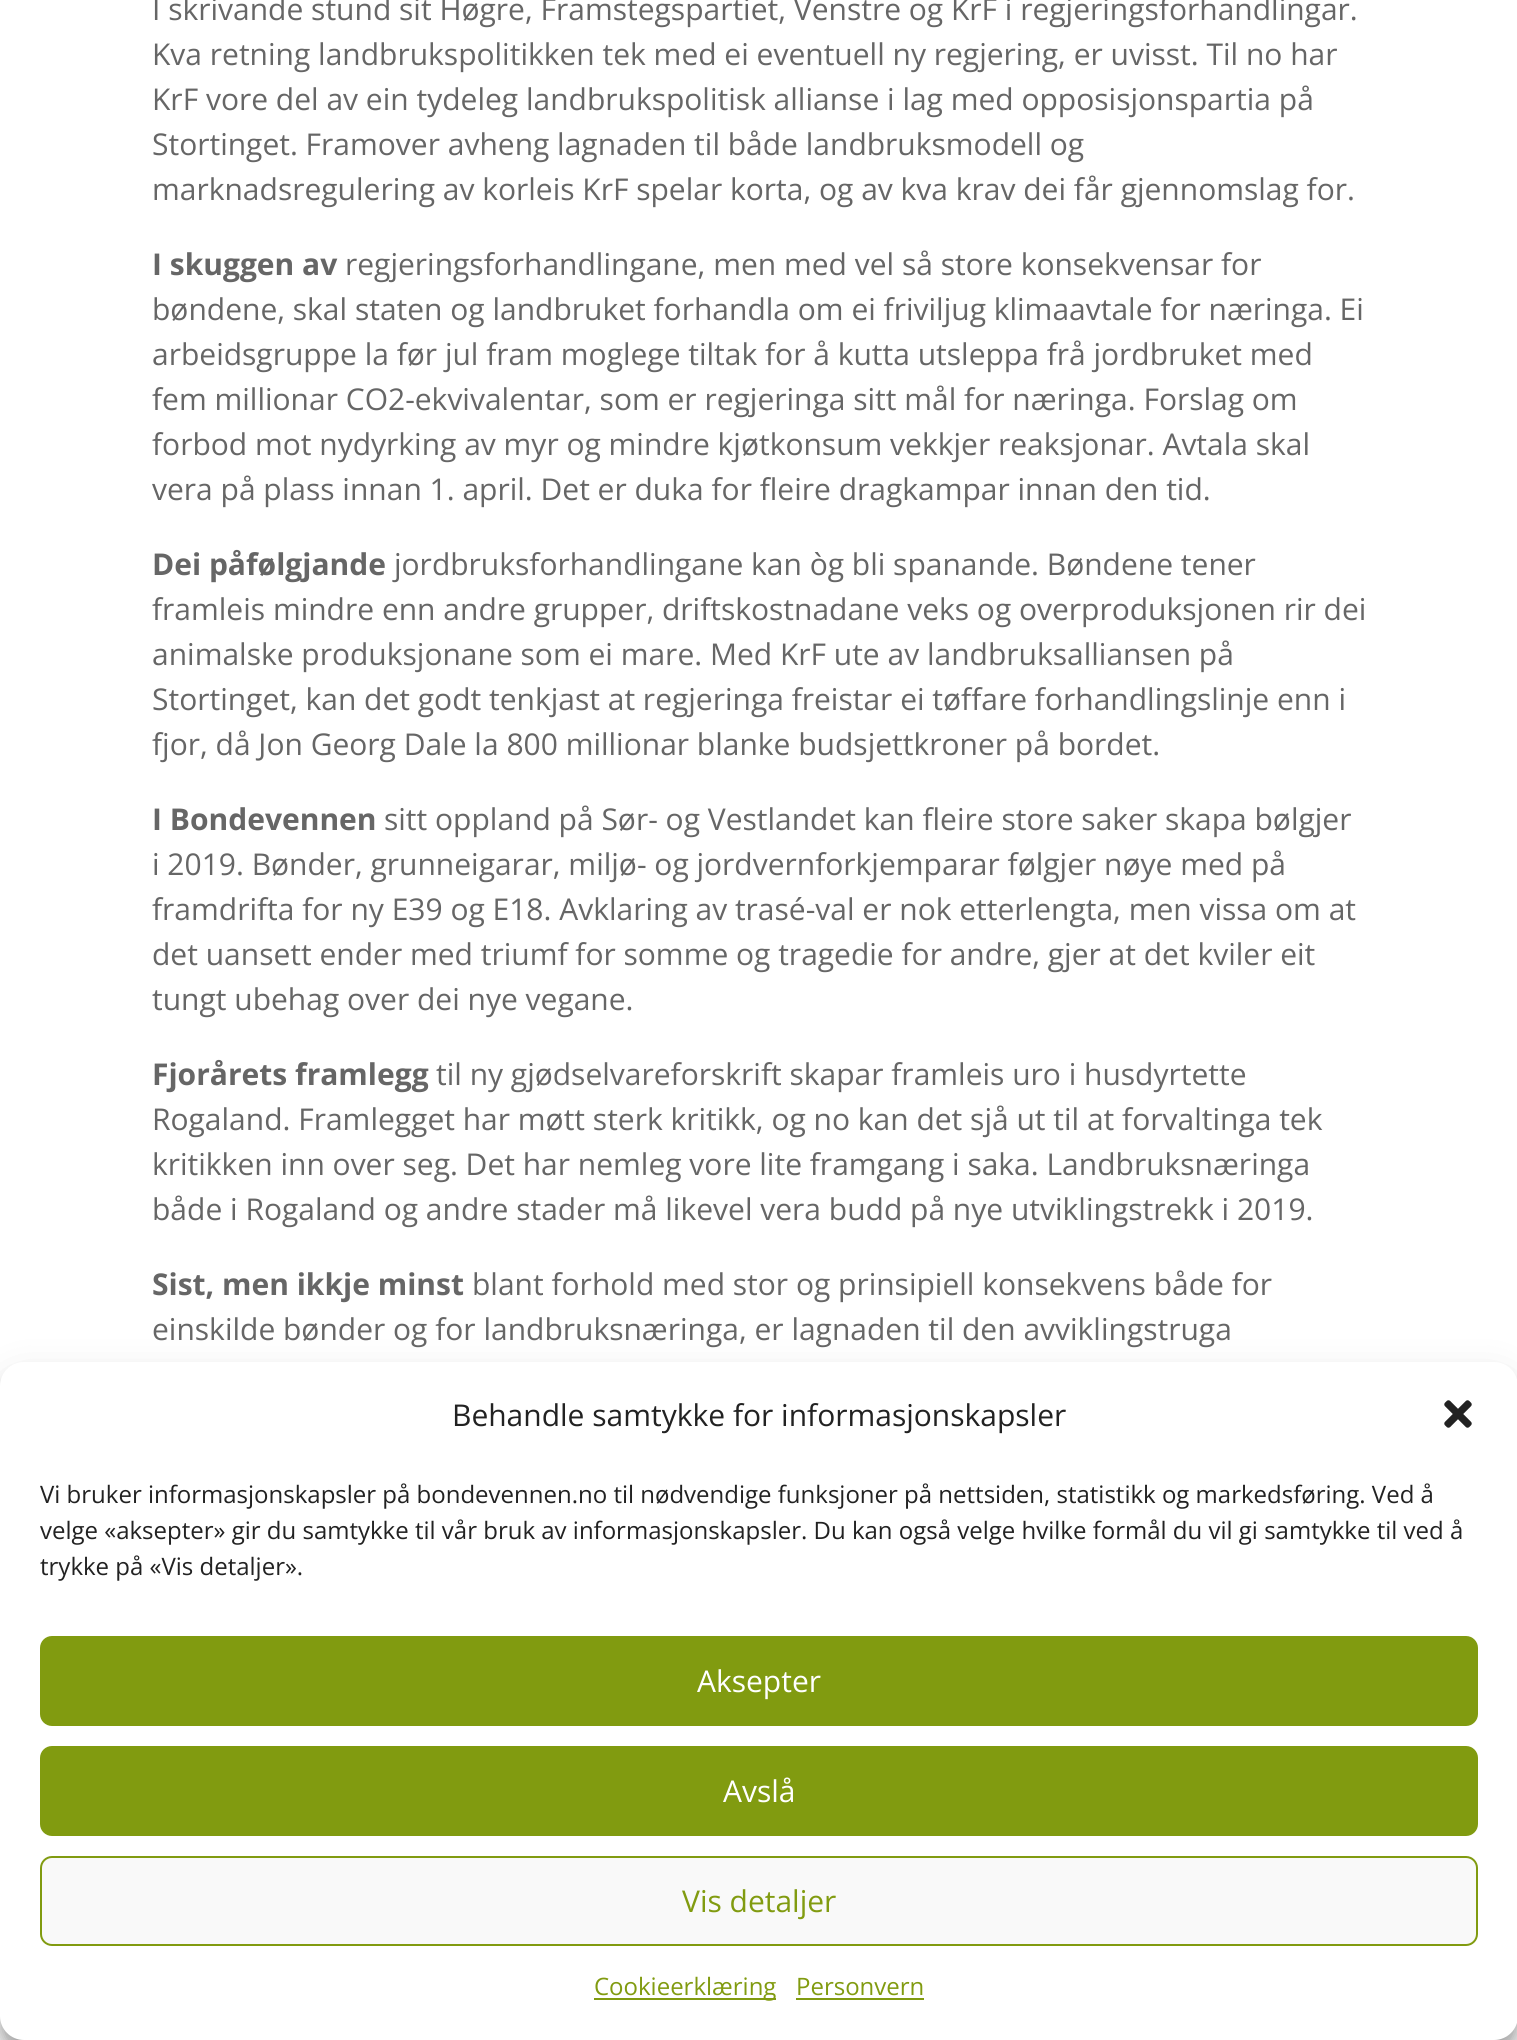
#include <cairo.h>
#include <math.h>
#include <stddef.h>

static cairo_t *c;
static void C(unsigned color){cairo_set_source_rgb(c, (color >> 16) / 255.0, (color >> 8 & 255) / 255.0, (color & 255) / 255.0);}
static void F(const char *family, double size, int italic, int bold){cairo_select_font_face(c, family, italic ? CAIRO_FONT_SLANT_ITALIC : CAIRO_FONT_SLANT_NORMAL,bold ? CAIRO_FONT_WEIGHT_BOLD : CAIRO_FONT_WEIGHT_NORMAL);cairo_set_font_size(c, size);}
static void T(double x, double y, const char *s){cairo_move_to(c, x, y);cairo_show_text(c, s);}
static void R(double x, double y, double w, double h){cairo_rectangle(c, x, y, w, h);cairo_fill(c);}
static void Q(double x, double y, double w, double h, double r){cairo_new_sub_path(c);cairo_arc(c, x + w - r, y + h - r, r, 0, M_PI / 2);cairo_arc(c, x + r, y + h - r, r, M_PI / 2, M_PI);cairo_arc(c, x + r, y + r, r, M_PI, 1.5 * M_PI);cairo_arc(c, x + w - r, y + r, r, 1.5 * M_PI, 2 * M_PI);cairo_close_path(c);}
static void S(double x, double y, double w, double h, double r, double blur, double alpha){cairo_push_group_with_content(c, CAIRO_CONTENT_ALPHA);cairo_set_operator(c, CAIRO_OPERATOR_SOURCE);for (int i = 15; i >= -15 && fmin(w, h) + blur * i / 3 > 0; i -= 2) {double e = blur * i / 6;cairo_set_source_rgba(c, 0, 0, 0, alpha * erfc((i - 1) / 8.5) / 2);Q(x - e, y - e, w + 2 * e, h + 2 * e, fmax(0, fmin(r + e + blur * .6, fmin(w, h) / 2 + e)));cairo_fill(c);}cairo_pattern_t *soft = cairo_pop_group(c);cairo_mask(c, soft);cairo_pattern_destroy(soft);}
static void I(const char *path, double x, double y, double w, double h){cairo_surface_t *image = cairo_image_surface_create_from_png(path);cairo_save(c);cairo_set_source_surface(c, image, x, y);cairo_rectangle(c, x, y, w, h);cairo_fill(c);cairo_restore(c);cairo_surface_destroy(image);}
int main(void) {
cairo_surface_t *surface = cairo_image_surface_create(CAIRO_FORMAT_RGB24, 1517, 2040);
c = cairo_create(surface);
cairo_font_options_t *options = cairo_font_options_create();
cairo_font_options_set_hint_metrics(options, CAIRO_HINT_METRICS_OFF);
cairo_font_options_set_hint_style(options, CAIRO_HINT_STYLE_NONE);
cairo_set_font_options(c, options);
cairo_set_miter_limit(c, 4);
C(0xffffff);
cairo_paint(c);
F("Open Sans",30,0,0);
C(0x666666);
T(152,20,"I skrivande stund sit Høgre, Framstegspartiet, Venstre og KrF i regjeringsforhandlingar.");
T(152,65,"Kva retning landbrukspolitikken tek med ei eventuell ny regjering, er uvisst. Til no har");
T(152,110,"KrF vore del av ein tydeleg landbrukspolitisk allianse i lag med opposisjonspartia på");
T(152,155,"Stortinget. Framover avheng lagnaden til både landbruksmodell og");
T(152,200,"marknadsregulering av korleis KrF spelar korta, og av kva krav dei får gjennomslag for.");
F("Open Sans",30,0,1);
T(152,275,"I skuggen av");
F("Open Sans",30,0,0);
T(345,275,"regjeringsforhandlingane, men med vel så store konsekvensar for");
T(152,320,"bøndene, skal staten og landbruket forhandla om ei friviljug klimaavtale for næringa. Ei");
T(152,365,"arbeidsgruppe la før jul fram moglege tiltak for å kutta utsleppa frå jordbruket med");
T(152,410,"fem millionar CO2-ekvivalentar, som er regjeringa sitt mål for næringa. Forslag om");
T(152,455,"forbod mot nydyrking av myr og mindre kjøtkonsum vekkjer reaksjonar. Avtala skal");
T(152,500,"vera på plass innan 1. april. Det er duka for fleire dragkampar innan den tid.");
F("Open Sans",30,0,1);
T(152,575,"Dei påfølgjande");
F("Open Sans",30,0,0);
T(394,575,"jordbruksforhandlingane kan òg bli spanande. Bøndene tener");
T(152,620,"framleis mindre enn andre grupper, driftskostnadane veks og overproduksjonen rir dei");
T(152,665,"animalske produksjonane som ei mare. Med KrF ute av landbruksalliansen på");
T(152,710,"Stortinget, kan det godt tenkjast at regjeringa freistar ei tøffare forhandlingslinje enn i");
T(152,755,"fjor, då Jon Georg Dale la 800 millionar blanke budsjettkroner på bordet.");
F("Open Sans",30,0,1);
T(152,830,"I Bondevennen");
F("Open Sans",30,0,0);
T(384,830,"sitt oppland på Sør- og Vestlandet kan fleire store saker skapa bølgjer");
T(152,875,"i 2019. Bønder, grunneigarar, miljø- og jordvernforkjemparar følgjer nøye med på");
T(152,920,"framdrifta for ny E39 og E18. Avklaring av trasé-val er nok etterlengta, men vissa om at");
T(152,965,"det uansett ender med triumf for somme og tragedie for andre, gjer at det kviler eit");
T(152,1010,"tungt ubehag over dei nye vegane.");
F("Open Sans",30,0,1);
T(152,1085,"Fjorårets framlegg");
F("Open Sans",30,0,0);
T(436,1085,"til ny gjødselvareforskrift skapar framleis uro i husdyrtette");
T(152,1130,"Rogaland. Framlegget har møtt sterk kritikk, og no kan det sjå ut til at forvaltinga tek");
T(152,1175,"kritikken inn over seg. Det har nemleg vore lite framgang i saka. Landbruksnæringa");
T(152,1220,"både i Rogaland og andre stader må likevel vera budd på nye utviklingstrekk i 2019.");
F("Open Sans",30,0,1);
T(152,1295,"Sist, men ikkje minst");
F("Open Sans",30,0,0);
T(472,1295,"blant forhold med stor og prinsipiell konsekvens både for");
T(152,1340,"einskilde bønder og for landbruksnæringa, er lagnaden til den avviklingstruga");
C(0x000000);
S(0,1374,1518,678,24,6,.23);
S(0,1382,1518,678,24,20,.19);
C(0xffffff);
Q(0,1362,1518,678,24);
cairo_fill(c);
C(0x222222);
T(452,1426,"Behandle samtykke for informasjonskapsler");
I("1.png",1444,1400,28,28);
F("Open Sans",24,0,0);
T(40,1503,"Vi bruker informasjonskapsler på bondevennen.no til nødvendige funksjoner på nettsiden, statistikk og markedsføring. Ved å");
T(40,1539,"velge «aksepter» gir du samtykke til vår bruk av informasjonskapsler. Du kan også velge hvilke formål du vil gi samtykke til ved å");
T(40,1575,"trykke på «Vis detaljer».");
C(0x819b10);
Q(41,1637,1436,88,11);
cairo_fill_preserve(c);
cairo_stroke(c);
F("Open Sans",30,0,0);
C(0xffffff);
T(697,1692,"Aksepter");
C(0x819b10);
Q(41,1747,1436,88,11);
cairo_fill_preserve(c);
cairo_stroke(c);
C(0xffffff);
T(723,1802,"Avslå");
C(0xf9f9f9);
Q(41,1857,1436,88,11);
cairo_fill_preserve(c);
C(0x819b10);
cairo_stroke(c);
T(682,1912,"Vis detaljer");
R(594,1998,182,2);
F("Open Sans",24,0,0);
T(594,1995,"Cookieerklæring");
T(796,1995,"Personvern");
R(796,1998,128,2);
cairo_surface_write_to_png(surface, "o.png");
cairo_font_options_destroy(options);
cairo_destroy(c);
cairo_surface_destroy(surface);
return 0;
}
